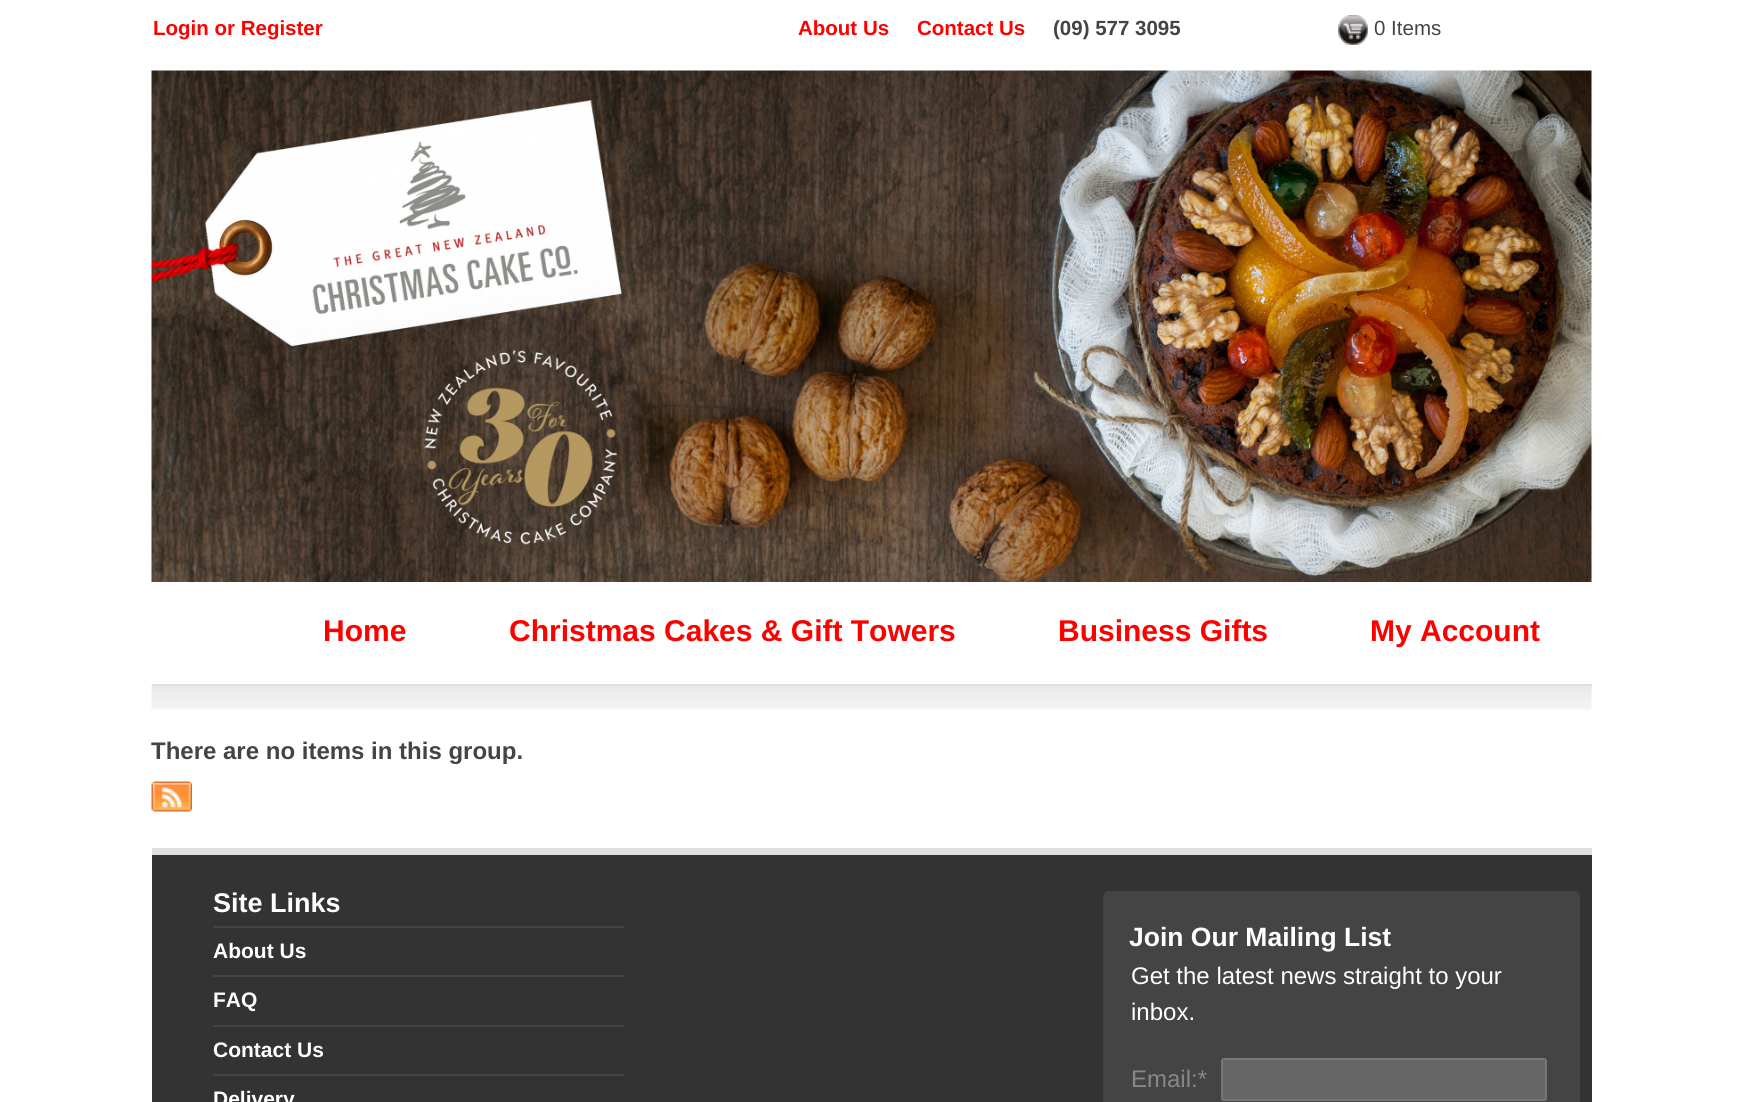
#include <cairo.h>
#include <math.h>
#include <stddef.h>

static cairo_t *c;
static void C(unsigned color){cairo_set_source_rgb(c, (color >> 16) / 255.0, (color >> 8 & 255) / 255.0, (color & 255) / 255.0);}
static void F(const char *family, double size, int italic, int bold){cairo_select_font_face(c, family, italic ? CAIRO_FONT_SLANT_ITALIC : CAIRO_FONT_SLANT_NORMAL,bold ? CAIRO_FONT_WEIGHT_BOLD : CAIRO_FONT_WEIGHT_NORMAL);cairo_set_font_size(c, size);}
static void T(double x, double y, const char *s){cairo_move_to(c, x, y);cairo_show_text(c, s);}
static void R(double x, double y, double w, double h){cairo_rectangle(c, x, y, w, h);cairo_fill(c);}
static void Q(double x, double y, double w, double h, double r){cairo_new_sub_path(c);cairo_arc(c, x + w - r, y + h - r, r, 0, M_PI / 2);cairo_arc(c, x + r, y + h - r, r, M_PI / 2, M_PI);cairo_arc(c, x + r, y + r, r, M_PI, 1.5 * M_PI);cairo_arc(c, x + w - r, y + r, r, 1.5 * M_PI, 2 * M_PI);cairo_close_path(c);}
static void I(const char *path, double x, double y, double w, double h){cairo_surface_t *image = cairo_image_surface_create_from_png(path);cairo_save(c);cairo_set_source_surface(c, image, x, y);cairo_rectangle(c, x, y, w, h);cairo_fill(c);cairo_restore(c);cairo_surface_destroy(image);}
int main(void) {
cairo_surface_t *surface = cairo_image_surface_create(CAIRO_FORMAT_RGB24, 1741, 1102);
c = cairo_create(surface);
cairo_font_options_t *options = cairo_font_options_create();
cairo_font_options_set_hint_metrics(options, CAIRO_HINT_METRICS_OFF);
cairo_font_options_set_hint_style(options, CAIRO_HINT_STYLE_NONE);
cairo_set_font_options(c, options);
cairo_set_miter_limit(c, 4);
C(0xffffff);
cairo_paint(c);
F("Liberation Sans",20.5,0,1);
C(0xff0000);
T(153,35,"Login or Register");
T(798,35,"About Us");
T(917,35,"Contact Us");
C(0x444444);
T(1053,35,"(09) 577 3095");
I("1.png",1338,15,30,30);
F("Liberation Sans",20.5,0,0);
T(1374,35,"0 Items");
C(0xdedede);
R(152,684,1440,2);
I("2.png",151,70,1441,512);
F("Liberation Sans",30,0,1);
C(0xff0000);
T(323,641,"Home");
T(509,641,"Christmas Cakes & Gift Towers");
T(1058,641,"Business Gifts");
T(1370,641,"My Account");
I("3.png",151,685,1441,25);
F("Liberation Sans",24,0,1);
C(0x444444);
T(151,759,"There are no items in this group.");
I("4.png",151,781,41,31);
C(0xdedede);
R(152,848,1440,7);
C(0x333333);
R(152,855,1440,247);
F("Liberation Sans",27,0,1);
C(0xffffff);
T(213,912,"Site Links");
C(0x444444);
R(213,926,411,2);
F("Liberation Sans",21,0,1);
C(0xffffff);
T(213,958,"About Us");
C(0x444444);
R(213,975,411,2);
C(0xffffff);
T(213,1007,"FAQ");
C(0x444444);
R(213,1025,411,2);
C(0xffffff);
T(213,1057,"Contact Us");
C(0x444444);
R(213,1074,411,2);
C(0xffffff);
T(213,1106,"Delivery");
C(0x444444);
Q(1103,891,477,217,6);
cairo_fill(c);
F("Liberation Sans",26.5,0,1);
C(0xffffff);
T(1129,946,"Join Our Mailing List");
F("Liberation Sans",24,0,0);
T(1131,984,"Get the latest news straight to your");
T(1131,1020,"inbox.");
C(0x888888);
T(1131,1087,"Email:*");
C(0x666666);
Q(1222,1059,324,41,2);
cairo_fill_preserve(c);
C(0x777777);
cairo_stroke(c);
cairo_surface_write_to_png(surface, "o.png");
cairo_font_options_destroy(options);
cairo_destroy(c);
cairo_surface_destroy(surface);
return 0;
}
